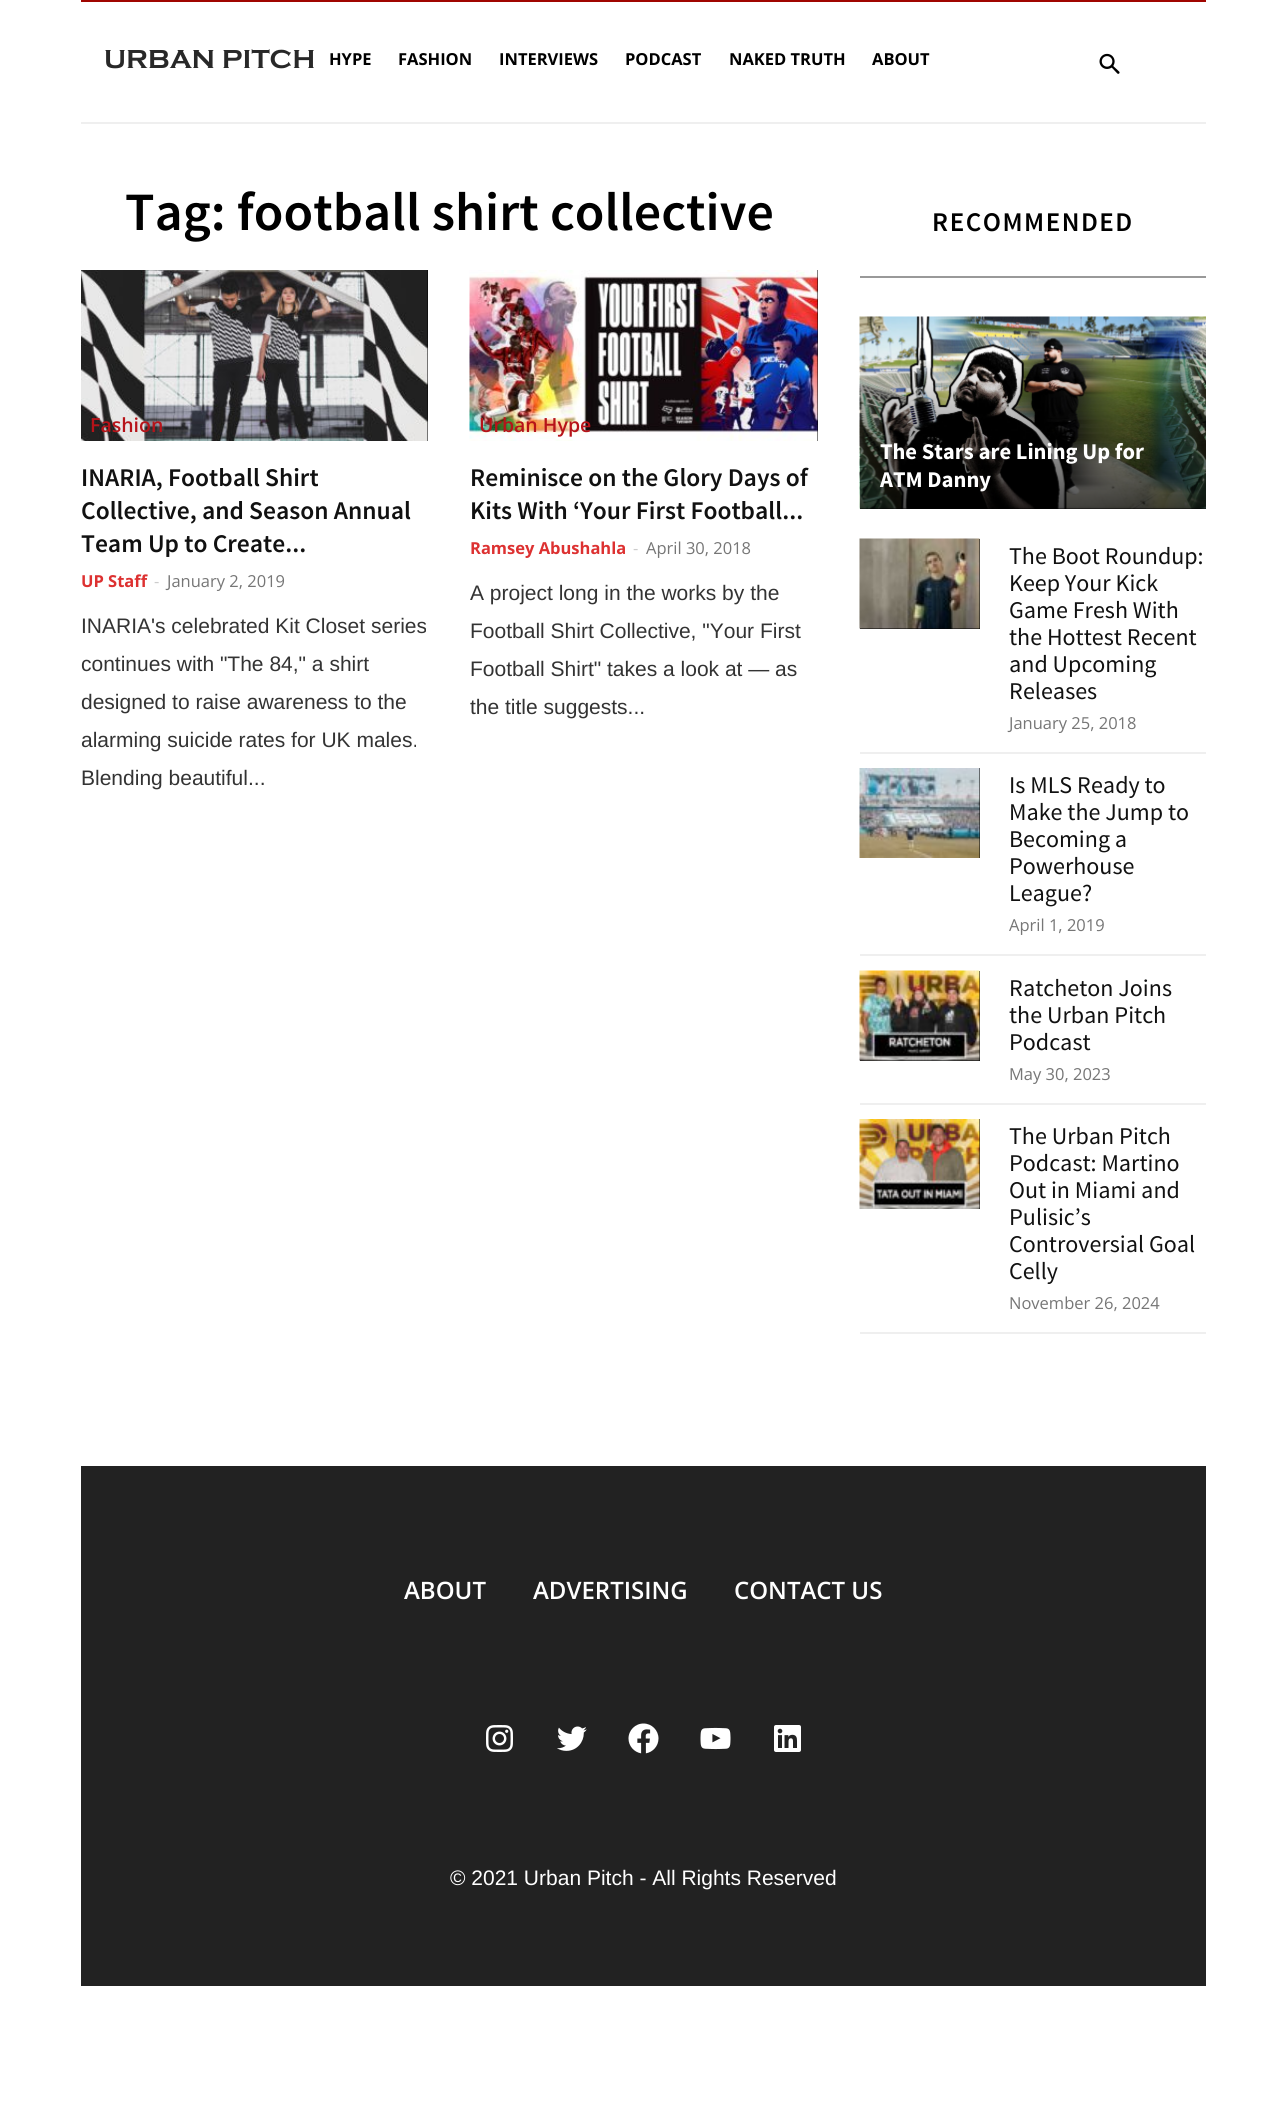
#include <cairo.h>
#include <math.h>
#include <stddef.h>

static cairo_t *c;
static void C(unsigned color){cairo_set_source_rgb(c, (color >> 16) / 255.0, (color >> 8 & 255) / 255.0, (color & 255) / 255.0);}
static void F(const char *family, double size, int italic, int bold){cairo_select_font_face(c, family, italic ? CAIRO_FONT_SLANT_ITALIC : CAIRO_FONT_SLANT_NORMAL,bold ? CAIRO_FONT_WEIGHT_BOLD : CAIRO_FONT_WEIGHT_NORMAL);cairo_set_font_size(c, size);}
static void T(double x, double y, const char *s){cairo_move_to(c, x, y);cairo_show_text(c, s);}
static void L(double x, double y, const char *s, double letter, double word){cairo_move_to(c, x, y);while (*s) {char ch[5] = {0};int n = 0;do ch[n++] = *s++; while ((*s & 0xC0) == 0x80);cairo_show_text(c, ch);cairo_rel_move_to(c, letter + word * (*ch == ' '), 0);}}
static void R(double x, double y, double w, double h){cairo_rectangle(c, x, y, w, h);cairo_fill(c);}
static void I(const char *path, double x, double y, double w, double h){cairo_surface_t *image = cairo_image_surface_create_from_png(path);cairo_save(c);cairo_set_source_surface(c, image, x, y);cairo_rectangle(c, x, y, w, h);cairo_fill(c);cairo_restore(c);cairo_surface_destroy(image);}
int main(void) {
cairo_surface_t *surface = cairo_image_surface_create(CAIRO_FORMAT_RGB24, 1287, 2117);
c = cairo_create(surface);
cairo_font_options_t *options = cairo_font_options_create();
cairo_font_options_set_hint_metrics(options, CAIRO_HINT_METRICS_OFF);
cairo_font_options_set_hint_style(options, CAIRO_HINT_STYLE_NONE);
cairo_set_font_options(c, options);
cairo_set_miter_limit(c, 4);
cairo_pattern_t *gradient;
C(0xffffff);
cairo_paint(c);
C(0xefefef);
R(81,122,1125,2);
C(0xa00500);
R(81,0,1125,2);
F("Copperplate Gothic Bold",27,0,1);
C(0x282828);
T(104,68,"URBAN PITCH");
F("Open Sans",16.5,0,1);
C(0x000000);
T(329,65,"HYPE");
T(398,65,"FASHION");
T(499,65,"INTERVIEWS");
T(625,65,"PODCAST");
T(729,65,"NAKED TRUTH");
T(872,65,"ABOUT");
I("1.png",1099,53,21,21);
F("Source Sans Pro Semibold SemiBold",54,0,0);
T(125,230,"Tag: football shirt collective");
R(427,270,1,171);
I("2.png",81,270,347,171);
F("Open Sans SemiBold",19.5,0,0);
C(0xb71319);
T(90,432,"Fashion");
F("Source Sans Pro Semibold SemiBold",25.5,0,0);
C(0x111111);
T(81,486,"INARIA, Football Shirt");
T(81,519,"Collective, and Season Annual");
T(81,552,"Team Up to Create...");
F("Open Sans",16.5,0,1);
C(0xdd3131);
T(81,587,"UP Staff");
F("Open Sans",16.5,0,0);
C(0xcccccc);
T(154,587,"-");
C(0x767676);
T(167,587,"January 2, 2019");
F("Liberation Sans",21,0,0);
C(0x333333);
T(81,633,"INARIA's celebrated Kit Closet series");
T(81,671,"continues with \"The 84,\" a shirt");
T(81,709,"designed to raise awareness to the");
T(81,747,"alarming suicide rates for UK males.");
T(81,785,"Blending beautiful...");
C(0x000000);
R(817,270,1,171);
I("3.png",469,270,349,171);
F("Open Sans SemiBold",19.5,0,0);
C(0xb71319);
T(479,432,"Urban Hype");
F("Source Sans Pro Semibold SemiBold",25.5,0,0);
C(0x111111);
T(470,486,"Reminisce on the Glory Days of");
T(470,519,"Kits With ‘Your First Football...");
F("Open Sans",16.5,0,1);
C(0xdd3131);
T(470,554,"Ramsey Abushahla");
F("Open Sans",16.5,0,0);
C(0xcccccc);
T(633,554,"-");
C(0x767676);
T(646,554,"April 30, 2018");
F("Liberation Sans",21,0,0);
C(0x333333);
T(470,600,"A project long in the works by the");
T(470,638,"Football Shirt Collective, \"Your First");
T(470,676,"Football Shirt\" takes a look at — as");
T(470,714,"the title suggests...");
C(0x999999);
R(860,276,346,2);
F("Source Sans Pro Semibold SemiBold",27,0,0);
C(0x000000);
L(932,231,"RECOMMENDED",1.5,0);
R(860,507,346,2);
I("4.png",859,316,347,193);
gradient = cairo_pattern_create_linear(1033,356,1033,509);
cairo_pattern_add_color_stop_rgba(gradient,0,0,0,0,0);
cairo_pattern_add_color_stop_rgba(gradient,1,0,0,0,.7);
cairo_set_source(c,gradient);
cairo_pattern_destroy(gradient);
R(860,361,346,148);
F("Source Sans Pro",22.5,0,1);
C(0xffffff);
T(880,459,"The Stars are Lining Up for");
T(880,487,"ATM Danny");
C(0xefefef);
R(860,752,346,2);
C(0x000000);
R(860,539,120,90);
I("5.png",859,538,121,91);
F("Source Sans Pro",24,0,0);
C(0x111111);
T(1009,564,"The Boot Roundup:");
T(1009,591,"Keep Your Kick");
T(1009,618,"Game Fresh With");
T(1009,645,"the Hottest Recent");
T(1009,672,"and Upcoming");
T(1009,699,"Releases");
F("Open Sans",16.5,0,0);
C(0x767676);
T(1009,729,"January 25, 2018");
C(0xefefef);
R(860,954,346,2);
C(0x000000);
R(979,768,1,90);
I("6.png",859,768,121,90);
F("Source Sans Pro",24,0,0);
C(0x111111);
T(1009,793,"Is MLS Ready to");
T(1009,820,"Make the Jump to");
T(1009,847,"Becoming a");
T(1009,874,"Powerhouse");
T(1009,901,"League?");
F("Open Sans",16.5,0,0);
C(0x767676);
T(1009,931,"April 1, 2019");
C(0xefefef);
R(860,1103,346,2);
C(0x000000);
R(860,971,120,90);
I("7.png",859,970,121,91);
F("Source Sans Pro",24,0,0);
C(0x111111);
T(1009,996,"Ratcheton Joins");
T(1009,1023,"the Urban Pitch");
T(1009,1050,"Podcast");
F("Open Sans",16.5,0,0);
C(0x767676);
T(1009,1080,"May 30, 2023");
C(0xefefef);
R(860,1332,346,2);
C(0x000000);
R(979,1119,1,90);
I("8.png",859,1119,121,90);
F("Source Sans Pro",24,0,0);
C(0x111111);
T(1009,1144,"The Urban Pitch");
T(1009,1171,"Podcast: Martino");
T(1009,1198,"Out in Miami and");
T(1009,1225,"Pulisic’s");
T(1009,1252,"Controversial Goal");
T(1009,1279,"Celly");
F("Open Sans",16.5,0,0);
C(0x767676);
T(1009,1309,"November 26, 2024");
C(0x222222);
R(81,1466,1125,520);
F("Open Sans SemiBold",24,0,0);
C(0xffffff);
T(404,1599,"ABOUT");
T(533,1599,"ADVERTISING");
T(734,1599,"CONTACT US");
I("9.png",486,1725,27,27);
I("10.png",557,1726,30,25);
I("11.png",628,1723,31,31);
I("12.png",700,1727,31,23);
I("13.png",774,1725,27,27);
F("Liberation Sans",21,0,0);
T(450,1885,"© 2021 Urban Pitch - All Rights Reserved");
cairo_surface_write_to_png(surface, "o.png");
cairo_font_options_destroy(options);
cairo_destroy(c);
cairo_surface_destroy(surface);
return 0;
}
